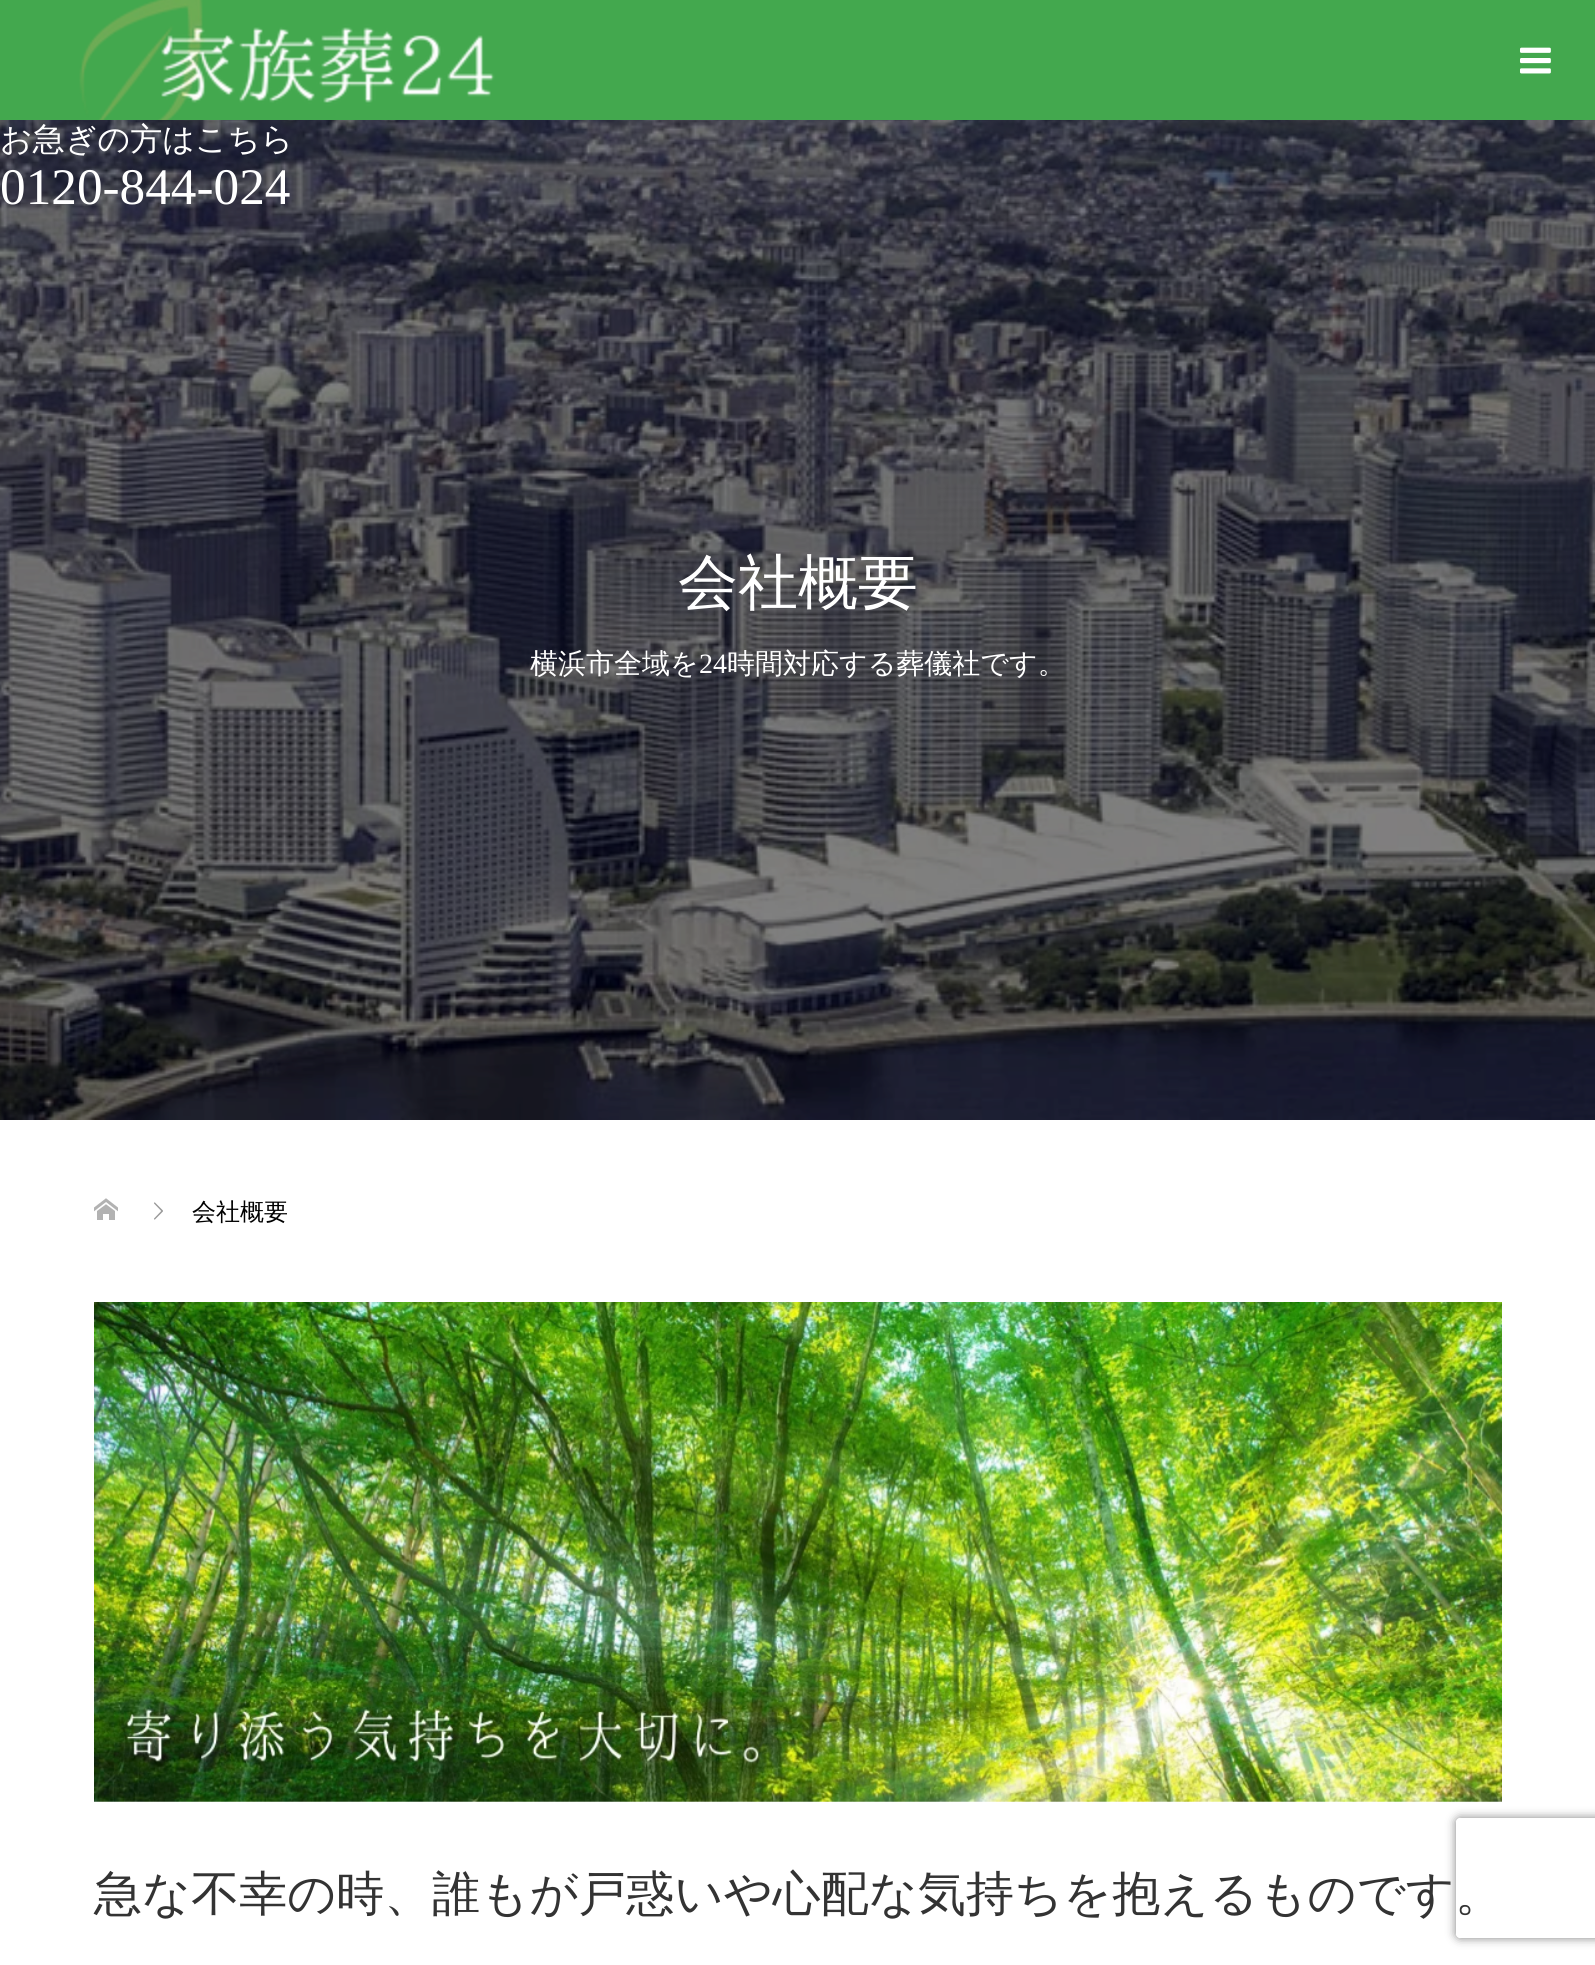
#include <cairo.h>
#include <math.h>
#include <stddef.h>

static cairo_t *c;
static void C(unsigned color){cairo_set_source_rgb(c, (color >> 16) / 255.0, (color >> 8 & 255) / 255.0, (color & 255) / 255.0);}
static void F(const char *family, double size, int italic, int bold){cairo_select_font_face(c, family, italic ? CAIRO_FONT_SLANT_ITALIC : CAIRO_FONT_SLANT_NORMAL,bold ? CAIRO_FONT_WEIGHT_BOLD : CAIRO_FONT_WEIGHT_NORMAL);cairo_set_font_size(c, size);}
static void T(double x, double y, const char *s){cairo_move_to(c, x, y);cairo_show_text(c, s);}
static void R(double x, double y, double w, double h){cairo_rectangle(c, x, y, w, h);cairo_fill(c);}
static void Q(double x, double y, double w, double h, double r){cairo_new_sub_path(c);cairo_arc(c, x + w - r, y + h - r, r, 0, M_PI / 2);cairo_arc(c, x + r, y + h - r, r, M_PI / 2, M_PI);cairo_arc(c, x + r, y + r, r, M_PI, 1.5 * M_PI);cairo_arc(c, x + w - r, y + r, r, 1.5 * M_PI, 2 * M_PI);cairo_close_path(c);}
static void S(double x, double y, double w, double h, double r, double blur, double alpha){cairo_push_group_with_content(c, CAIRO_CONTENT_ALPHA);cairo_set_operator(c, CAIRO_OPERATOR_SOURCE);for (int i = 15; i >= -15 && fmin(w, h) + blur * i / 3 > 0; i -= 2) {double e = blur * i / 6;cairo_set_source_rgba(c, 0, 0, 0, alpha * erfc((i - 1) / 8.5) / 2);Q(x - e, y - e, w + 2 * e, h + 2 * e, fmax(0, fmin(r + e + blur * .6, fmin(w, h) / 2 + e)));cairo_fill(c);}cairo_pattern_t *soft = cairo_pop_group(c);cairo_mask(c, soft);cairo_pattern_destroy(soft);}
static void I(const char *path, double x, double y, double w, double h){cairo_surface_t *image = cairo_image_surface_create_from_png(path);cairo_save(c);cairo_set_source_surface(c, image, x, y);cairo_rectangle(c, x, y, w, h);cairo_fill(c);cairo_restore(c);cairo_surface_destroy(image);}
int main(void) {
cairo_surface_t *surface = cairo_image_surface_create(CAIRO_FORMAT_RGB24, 1595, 1965);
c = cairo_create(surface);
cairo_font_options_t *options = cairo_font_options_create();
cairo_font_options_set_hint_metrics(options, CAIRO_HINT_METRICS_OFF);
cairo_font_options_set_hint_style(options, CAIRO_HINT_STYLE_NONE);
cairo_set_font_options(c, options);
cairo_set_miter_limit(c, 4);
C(0xffffff);
cairo_paint(c);
I("1.png",0,120,1595,1000);
C(0x43a84e);
R(0,0,1595,120);
I("2.png",79,0,416,120);
I("3.png",1520,47,31,27);
F("WenQuanYi Zen Hei Medium",32,0,0);
C(0xffffff);
T(0,150,"お急ぎの方はこちら");
F("Liberation Serif",51.25,0,0);
T(0,204,"0120-844-024");
F("WenQuanYi Zen Hei Medium",60,0,0);
T(678,603,"会社概要");
F("WenQuanYi Zen Hei Medium",28,0,0);
T(530,673,"横浜市全域を");
F("Liberation Serif",28,0,0);
T(699,673,"24");
F("WenQuanYi Zen Hei Medium",28,0,0);
T(727,673,"時間対応する葬儀社です。");
I("4.png",94,1198,24,22);
I("5.png",154,1202,9,18);
F("WenQuanYi Zen Hei Medium",24,0,0);
C(0x000000);
T(192,1220,"会社概要");
I("6.png",94,1302,1408,500);
F("WenQuanYi Zen Hei Medium",48,0,0);
C(0x333333);
T(94,1910,"急な不幸の時、誰もが戸惑いや心配な気持ちを抱えるものです。");
cairo_save(c);
cairo_set_fill_rule(c,CAIRO_FILL_RULE_EVEN_ODD);
cairo_new_path(c);
cairo_move_to(c,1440,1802);
cairo_line_to(c,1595,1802);
cairo_line_to(c,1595,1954);
cairo_line_to(c,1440,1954);
cairo_close_path(c);
cairo_move_to(c,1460,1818);
cairo_line_to(c,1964,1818);
cairo_curve_to(c,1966,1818,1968,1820,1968,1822);
cairo_line_to(c,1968,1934);
cairo_curve_to(c,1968,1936,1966,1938,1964,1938);
cairo_line_to(c,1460,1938);
cairo_curve_to(c,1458,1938,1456,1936,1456,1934);
cairo_line_to(c,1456,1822);
cairo_curve_to(c,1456,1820,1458,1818,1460,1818);
cairo_close_path(c);
cairo_clip(c);
C(0x808080);
S(1456,1818,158,120,4,5,1);
cairo_restore(c);
cairo_surface_write_to_png(surface, "o.png");
cairo_font_options_destroy(options);
cairo_destroy(c);
cairo_surface_destroy(surface);
return 0;
}
